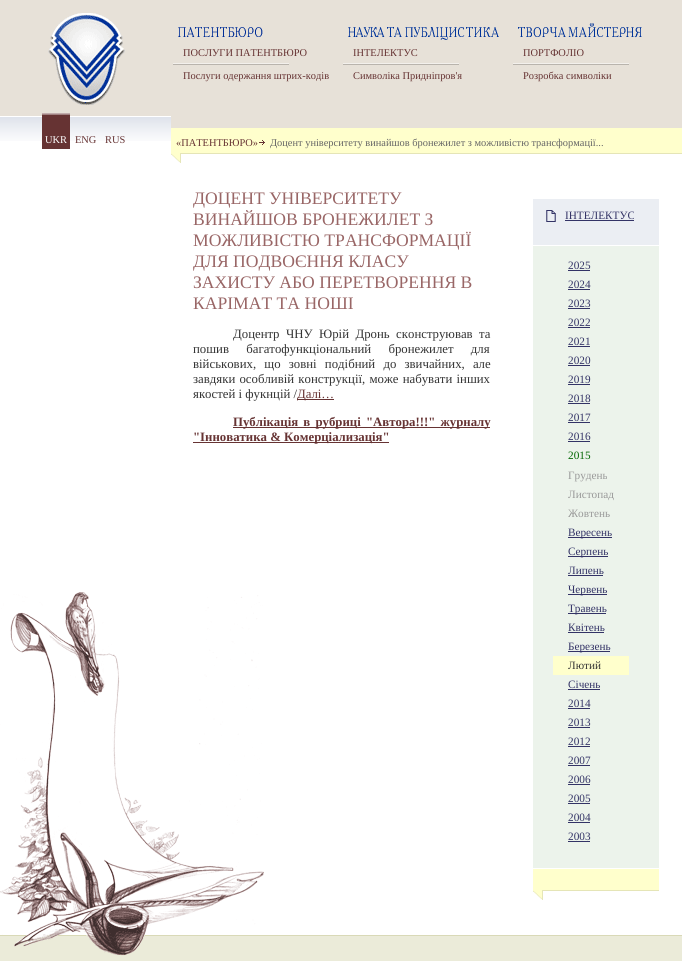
#include <cairo.h>
#include <math.h>
#include <stddef.h>

static cairo_t *c;
static void C(unsigned color){cairo_set_source_rgb(c, (color >> 16) / 255.0, (color >> 8 & 255) / 255.0, (color & 255) / 255.0);}
static void F(const char *family, double size, int italic, int bold){cairo_select_font_face(c, family, italic ? CAIRO_FONT_SLANT_ITALIC : CAIRO_FONT_SLANT_NORMAL,bold ? CAIRO_FONT_WEIGHT_BOLD : CAIRO_FONT_WEIGHT_NORMAL);cairo_set_font_size(c, size);}
static void T(double x, double y, const char *s){cairo_move_to(c, x, y);cairo_show_text(c, s);}
static void L(double x, double y, const char *s, double letter, double word){cairo_move_to(c, x, y);while (*s) {char ch[5] = {0};int n = 0;do ch[n++] = *s++; while ((*s & 0xC0) == 0x80);cairo_show_text(c, ch);cairo_rel_move_to(c, letter + word * (*ch == ' '), 0);}}
static void R(double x, double y, double w, double h){cairo_rectangle(c, x, y, w, h);cairo_fill(c);}
static void I(const char *path, double x, double y, double w, double h){cairo_surface_t *image = cairo_image_surface_create_from_png(path);cairo_save(c);cairo_set_source_surface(c, image, x, y);cairo_rectangle(c, x, y, w, h);cairo_fill(c);cairo_restore(c);cairo_surface_destroy(image);}
int main(void) {
cairo_surface_t *surface = cairo_image_surface_create(CAIRO_FORMAT_RGB24, 682, 961);
c = cairo_create(surface);
cairo_font_options_t *options = cairo_font_options_create();
cairo_font_options_set_hint_metrics(options, CAIRO_HINT_METRICS_OFF);
cairo_font_options_set_hint_style(options, CAIRO_HINT_STYLE_NONE);
cairo_set_font_options(c, options);
cairo_set_miter_limit(c, 4);
C(0xebebd9);
cairo_paint(c);
C(0xe7e1d8);
R(0,0,682,116);
I("1.png",48,13,77,92);
I("2.png",178,27,85,10);
F("Liberation Serif",10.4,0,0);
C(0x663333);
T(183,56,"ПОСЛУГИ ПАТЕНТБЮРО");
C(0xf3f0ec);
R(173,63,116,1);
C(0xb9b4ad);
R(173,64,116,1);
C(0x663333);
T(183,79,"Послуги одержання штрих-кодів");
I("3.png",348,27,151,13);
T(353,56,"ІНТЕЛЕКТУС");
C(0xf3f0ec);
R(343,63,116,1);
C(0xb9b4ad);
R(343,64,116,1);
C(0x663333);
T(353,79,"Символіка Придніпров'я");
I("4.png",518,23,124,15);
T(523,56,"ПОРТФОЛІО");
C(0xf3f0ec);
R(513,63,116,1);
C(0xb9b4ad);
R(513,64,116,1);
C(0x663333);
T(523,79,"Розробка символіки");
C(0xe7e1d8);
R(171,116,511,12);
C(0xffffff);
R(0,116,171,50);
I("5.png",0,117,171,24);
C(0x663333);
R(42,115,28,34);
I("6.png",42,113,28,2);
C(0xffffff);
T(45,143,"UKR");
C(0x663333);
T(75,143,"ENG");
T(105,143,"RUS");
C(0xffffcc);
R(171,128,511,25);
C(0xe5e5b7);
R(181,153,501,1);
C(0x663333);
T(176,146,"«ПАТЕНТБЮРО»");
I("7.png",259,140,6,5);
C(0x666666);
T(270,146,"Доцент університету винайшов бронежилет з можливістю трансформації...");
C(0xffffff);
R(171,154,511,12);
I("8.png",171,153,10,10);
R(0,166,682,769);
I("9.png",0,592,264,343);
F("Liberation Serif",17.6,0,0);
C(0x996666);
T(193,204,"ДОЦЕНТ УНІВЕРСИТЕТУ");
T(193,225,"ВИНАЙШОВ БРОНЕЖИЛЕТ З");
T(193,246,"МОЖЛИВІСТЮ ТРАНСФОРМАЦІЇ");
T(193,267,"ДЛЯ ПОДВОЄННЯ КЛАСУ");
T(193,288,"ЗАХИСТУ АБО ПЕРЕТВОРЕННЯ В");
T(193,309,"КАРІМАТ ТА НОШІ");
F("Liberation Serif",12.8,0,0);
C(0x333333);
L(233,338,"Доцентр ЧНУ Юрій Дронь сконструював та",0,3.25);
L(193,353,"пошив багатофункціональний бронежилет для",0,14);
L(193,368,"військових, що зовні подібний до звичайних, але",0,5);
L(193,383,"завдяки особливій конструкції, може набувати інших",0,1);
T(193,398,"якостей і фукнцій /");
C(0x663333);
R(297,399,37,1);
T(297,398,"Далі…");
R(233,427,257,1);
F("Liberation Serif",12.8,0,1);
L(233,426,"Публікація в рубриці \"Автора!!!\" журналу",0,2);
R(193,442,196,1);
T(193,441,"\"Інноватика & Комерціализація\"");
C(0xebeef3);
R(533,199,126,46);
I("10.png",546,210,10,12);
F("Liberation Serif",11.25,0,0);
C(0x333366);
T(565,219,"ІНТЕЛЕКТУС");
R(565,220,69,1);
C(0xecf3eb);
R(533,246,126,622);
C(0x333366);
T(568,269,"2025");
R(568,270,22,1);
T(568,288,"2024");
R(568,289,22,1);
T(568,307,"2023");
R(568,308,22,1);
T(568,326,"2022");
R(568,327,22,1);
T(568,345,"2021");
R(568,346,22,1);
T(568,364,"2020");
R(568,365,22,1);
T(568,383,"2019");
R(568,384,22,1);
T(568,402,"2018");
R(568,403,22,1);
T(568,421,"2017");
R(568,422,22,1);
T(568,440,"2016");
R(568,441,22,1);
C(0x006600);
T(568,459,"2015");
C(0x999999);
T(568,479,"Грудень");
T(568,498,"Листопад");
T(568,517,"Жовтень");
C(0x333366);
R(568,537,44,1);
T(568,536,"Вересень");
R(568,556,40,1);
T(568,555,"Серпень");
T(568,574,"Липень");
R(568,575,35,1);
R(568,594,39,1);
T(568,593,"Червень");
R(568,613,38,1);
T(568,612,"Травень");
T(568,631,"Квітень");
R(568,632,36,1);
R(568,651,42,1);
T(568,650,"Березень");
C(0xffffcc);
R(553,656,76,19);
C(0x333333);
T(568,669,"Лютий");
C(0x333366);
T(568,688,"Січень");
R(568,689,32,1);
T(568,707,"2014");
R(568,708,22,1);
T(568,726,"2013");
R(568,727,22,1);
T(568,745,"2012");
R(568,746,22,1);
T(568,764,"2007");
R(568,765,22,1);
T(568,783,"2006");
R(568,784,22,1);
T(568,802,"2005");
R(568,803,22,1);
T(568,821,"2004");
R(568,822,22,1);
T(568,840,"2003");
R(568,841,22,1);
C(0xffffcc);
R(533,869,126,21);
C(0xe5e5b7);
R(543,890,116,1);
I("8.png",533,890,10,10);
C(0xd9d9b7);
R(0,935,682,1);
I("11.png",14,935,131,21);
cairo_surface_write_to_png(surface, "o.png");
cairo_font_options_destroy(options);
cairo_destroy(c);
cairo_surface_destroy(surface);
return 0;
}
